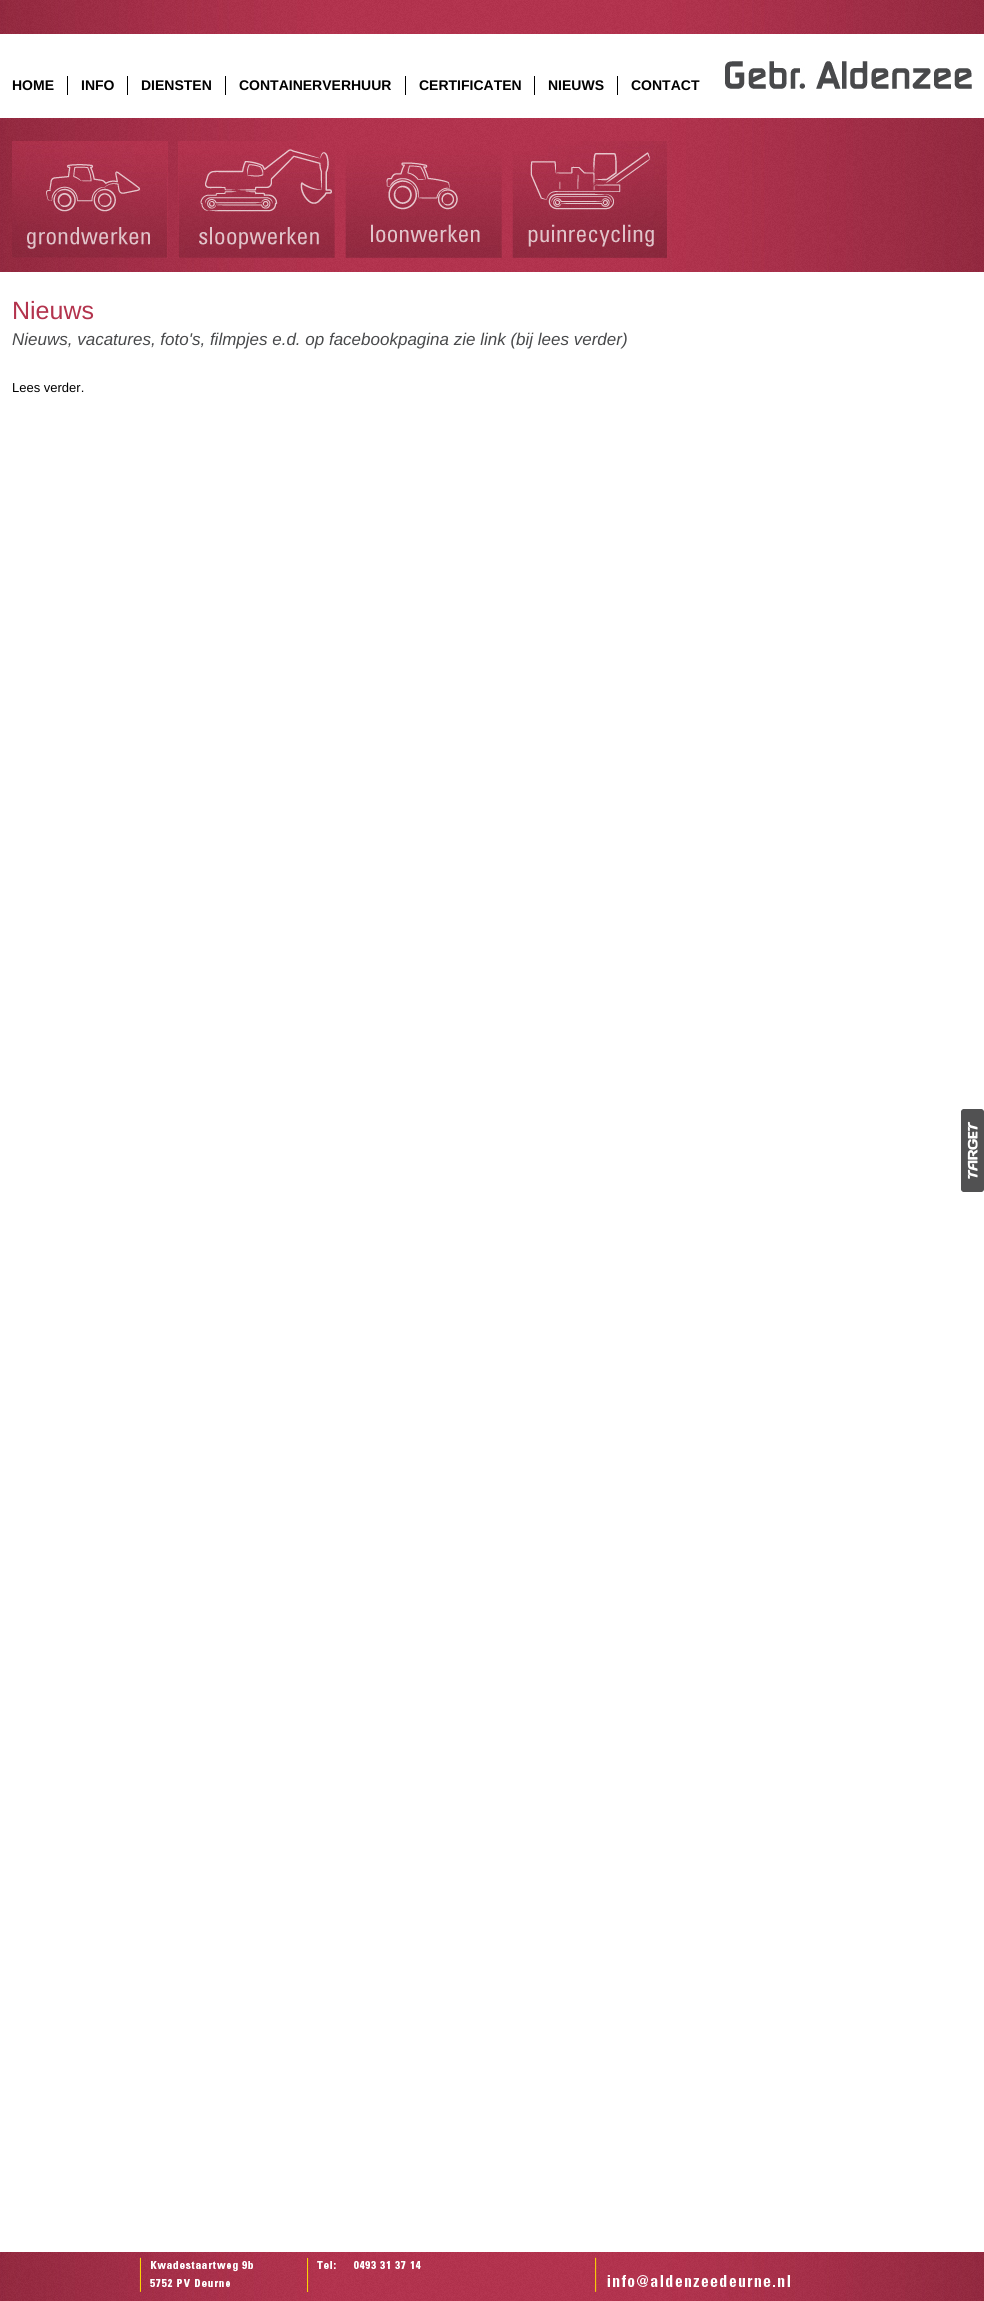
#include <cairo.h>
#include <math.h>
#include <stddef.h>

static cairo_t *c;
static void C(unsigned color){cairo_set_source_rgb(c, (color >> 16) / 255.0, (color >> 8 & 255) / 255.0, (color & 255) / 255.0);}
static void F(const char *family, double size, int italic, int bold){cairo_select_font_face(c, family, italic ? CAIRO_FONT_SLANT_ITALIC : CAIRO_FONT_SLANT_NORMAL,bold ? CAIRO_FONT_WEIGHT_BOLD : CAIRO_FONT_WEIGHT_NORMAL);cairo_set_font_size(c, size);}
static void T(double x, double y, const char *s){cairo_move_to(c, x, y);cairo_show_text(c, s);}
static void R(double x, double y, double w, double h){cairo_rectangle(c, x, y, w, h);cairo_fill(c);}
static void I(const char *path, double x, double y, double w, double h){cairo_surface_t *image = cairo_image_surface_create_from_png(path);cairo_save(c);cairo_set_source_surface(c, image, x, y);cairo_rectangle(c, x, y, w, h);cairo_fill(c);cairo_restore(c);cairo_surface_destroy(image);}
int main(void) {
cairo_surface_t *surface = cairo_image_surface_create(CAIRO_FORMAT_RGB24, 984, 2301);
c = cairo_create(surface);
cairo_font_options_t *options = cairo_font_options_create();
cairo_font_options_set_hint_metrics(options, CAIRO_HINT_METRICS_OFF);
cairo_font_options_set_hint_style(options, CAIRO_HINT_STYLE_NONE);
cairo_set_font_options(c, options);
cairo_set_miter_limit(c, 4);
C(0xffffff);
cairo_paint(c);
I("1.png",0,0,984,272);
C(0x000000);
R(67,76,1,19);
F("Liberation Sans",14,0,1);
T(12,90,"HOME");
R(127,76,1,19);
T(81,90,"INFO");
R(225,76,1,19);
T(141,90,"DIENSTEN");
R(405,76,1,19);
T(239,90,"CONTAINERVERHUUR");
R(534,76,1,19);
T(419,90,"CERTIFICATEN");
R(617,76,1,19);
T(548,90,"NIEUWS");
T(631,90,"CONTACT");
I("2.png",725,61,247,28);
I("3.png",12,141,156,117);
I("4.png",178,141,157,117);
I("5.png",345,141,157,117);
I("6.png",512,141,155,117);
F("Liberation Sans",25,0,0);
C(0xb3334d);
T(12,319,"Nieuws");
F("Liberation Sans",17,1,0);
C(0x48494b);
T(12,345,"Nieuws, vacatures, foto's, filmpjes e.d. op facebookpagina zie link (bij lees verder)");
F("Liberation Sans",13,0,0);
C(0x000000);
T(12,392,"Lees verder.");
I("7.png",0,2252,984,49);
I("8.png",139,2257,651,35);
I("9.png",961,1109,23,83);
cairo_surface_write_to_png(surface, "o.png");
cairo_font_options_destroy(options);
cairo_destroy(c);
cairo_surface_destroy(surface);
return 0;
}
